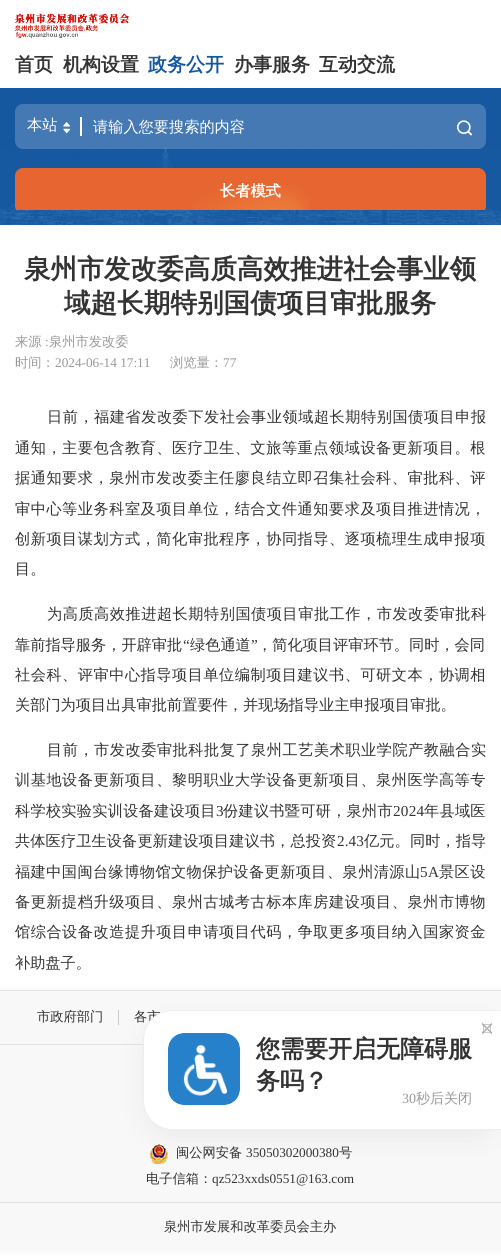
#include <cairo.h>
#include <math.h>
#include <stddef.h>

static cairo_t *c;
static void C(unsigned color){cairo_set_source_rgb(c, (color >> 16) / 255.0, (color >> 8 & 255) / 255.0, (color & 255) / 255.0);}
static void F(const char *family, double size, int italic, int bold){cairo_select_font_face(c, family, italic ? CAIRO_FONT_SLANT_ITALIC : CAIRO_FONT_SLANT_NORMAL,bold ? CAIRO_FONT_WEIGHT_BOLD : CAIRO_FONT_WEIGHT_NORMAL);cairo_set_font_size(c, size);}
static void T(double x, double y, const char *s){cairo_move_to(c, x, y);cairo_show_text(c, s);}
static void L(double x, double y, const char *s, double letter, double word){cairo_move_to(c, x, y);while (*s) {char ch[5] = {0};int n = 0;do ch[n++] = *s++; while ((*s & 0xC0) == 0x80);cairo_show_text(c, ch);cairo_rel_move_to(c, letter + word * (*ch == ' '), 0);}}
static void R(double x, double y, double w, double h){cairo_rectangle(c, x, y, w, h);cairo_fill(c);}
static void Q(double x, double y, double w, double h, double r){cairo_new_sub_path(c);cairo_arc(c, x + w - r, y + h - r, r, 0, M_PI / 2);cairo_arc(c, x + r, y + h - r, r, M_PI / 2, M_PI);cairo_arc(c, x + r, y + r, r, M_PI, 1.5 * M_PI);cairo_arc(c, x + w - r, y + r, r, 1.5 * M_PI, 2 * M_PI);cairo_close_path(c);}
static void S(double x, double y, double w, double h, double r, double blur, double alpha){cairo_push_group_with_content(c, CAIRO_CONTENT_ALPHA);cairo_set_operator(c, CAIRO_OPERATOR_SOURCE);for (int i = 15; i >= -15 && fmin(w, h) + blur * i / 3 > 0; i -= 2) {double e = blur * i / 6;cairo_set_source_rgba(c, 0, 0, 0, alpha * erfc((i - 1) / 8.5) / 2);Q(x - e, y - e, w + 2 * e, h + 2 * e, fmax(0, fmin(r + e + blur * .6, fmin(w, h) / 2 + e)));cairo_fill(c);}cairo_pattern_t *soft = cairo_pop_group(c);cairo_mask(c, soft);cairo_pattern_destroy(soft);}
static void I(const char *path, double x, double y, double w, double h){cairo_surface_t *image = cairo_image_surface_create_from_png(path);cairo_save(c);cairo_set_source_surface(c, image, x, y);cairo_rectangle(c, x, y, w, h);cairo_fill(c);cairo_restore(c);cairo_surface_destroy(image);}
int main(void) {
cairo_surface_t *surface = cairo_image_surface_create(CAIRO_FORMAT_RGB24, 501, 1256);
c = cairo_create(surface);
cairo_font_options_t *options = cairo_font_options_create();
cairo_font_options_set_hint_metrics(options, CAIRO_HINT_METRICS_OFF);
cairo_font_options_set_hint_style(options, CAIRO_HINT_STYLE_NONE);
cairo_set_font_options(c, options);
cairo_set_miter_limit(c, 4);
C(0xffffff);
cairo_paint(c);
I("1.png",15,13,115,26);
F("WenQuanYi Zen Hei",19,0,1);
C(0x333333);
T(15,71,"首页");
T(63,71,"机构设置");
C(0x1658a0);
T(148,71,"政务公开");
C(0x333333);
T(234,71,"办事服务");
T(319,71,"互动交流");
C(0x1658a0);
R(0,88,501,59);
I("2.png",0,147,501,78);
cairo_set_source_rgba(c,1,1,1,0.2);
Q(15,104,471,45,8);
cairo_fill(c);
F("WenQuanYi Zen Hei Medium",15.2,0,0);
C(0xffffff);
T(27,130,"本站");
I("3.png",63,122,8,12);
R(80,117,2,19);
T(93,132,"请输入您要搜索的内容");
I("4.png",457,120,15,16);
cairo_save(c);
cairo_rectangle(c,6,104,489,106);
cairo_clip(c);
C(0xe66531);
Q(15,168,471,46,8);
cairo_fill(c);
cairo_restore(c);
I("5.png",193,185,117,25);
F("WenQuanYi Zen Hei",15.2,0,1);
T(220,196,"长者模式");
F("WenQuanYi Zen Hei",26.6,0,1);
C(0x333333);
T(24,278,"泉州市发改委高质高效推进社会事业领");
T(64,312,"域超长期特别国债项目审批服务");
F("WenQuanYi Zen Hei Medium",13.25,0,0);
C(0x999999);
T(15,346,"来源");
F("Liberation Serif",13.25,0,0);
T(45,346,":");
F("WenQuanYi Zen Hei Medium",13.25,0,0);
T(49,346,"泉州市发改委");
T(15,367,"时间：");
F("Liberation Serif",13.25,0,0);
T(55,367,"2024-06-14 17:11");
F("WenQuanYi Zen Hei Medium",13.25,0,0);
T(170,367,"浏览量：");
F("Liberation Serif",13.25,0,0);
T(223,367,"77");
F("WenQuanYi Zen Hei Medium",15.2,0,0);
C(0x333333);
L(47,422,"日前，福建省发改委下发社会事业领域超长期特别国债项目申报",.5,0);
L(15,453,"通知，主要包含教育、医疗卫生、文旅等重点领域设备更新项目。根",.5,0);
L(15,483,"据通知要求，泉州市发改委主任廖良结立即召集社会科、审批科、评",.5,0);
L(15,514,"审中心等业务科室及项目单位，结合文件通知要求及项目推进情况，",.5,0);
L(15,544,"创新项目谋划方式，简化审批程序，协同指导、逐项梳理生成申报项",.5,0);
T(15,574,"目。");
L(47,619,"为高质高效推进超长期特别国债项目审批工作，市发改委审批科",.5,0);
T(15,650,"靠前指导服务，开辟审批");
F("Liberation Serif",15.2,0,0);
T(183,650,"“");
F("WenQuanYi Zen Hei Medium",15.2,0,0);
T(190,650,"绿色通道");
F("Liberation Serif",15.2,0,0);
T(251,650,"”");
F("WenQuanYi Zen Hei Medium",15.2,0,0);
T(257,650,"，简化项目评审环节。同时，会同");
L(15,680,"社会科、评审中心指导项目单位编制项目建议书、可研文本，协调相",.5,0);
T(15,710,"关部门为项目出具审批前置要件，并现场指导业主申报项目审批。");
L(47,755,"目前，市发改委审批科批复了泉州工艺美术职业学院产教融合实",.5,0);
L(15,785,"训基地设备更新项目、黎明职业大学设备更新项目、泉州医学高等专",.5,0);
L(15,816,"科学校实验实训设备建设项目",.25,0);
F("Liberation Serif",15.2,0,0);
L(216,816,"3",.25,0);
F("WenQuanYi Zen Hei Medium",15.2,0,0);
L(223,816,"份建议书暨可研，泉州市",.25,0);
F("Liberation Serif",15.2,0,0);
L(393,816,"2024",.25,0);
F("WenQuanYi Zen Hei Medium",15.2,0,0);
L(424,816,"年县域医",.25,0);
L(15,846,"共体医疗卫生设备更新建设项目建议书，总投资",.1,0);
F("Liberation Serif",15.2,0,0);
L(337,846,"2.43",.1,0);
F("WenQuanYi Zen Hei Medium",15.2,0,0);
L(364,846,"亿元。同时，指导",.1,0);
L(15,877,"福建中国闽台缘博物馆文物保护设备更新项目、泉州清源山",.4,0);
F("Liberation Serif",15.2,0,0);
L(420,877,"5A",.4,0);
F("WenQuanYi Zen Hei Medium",15.2,0,0);
L(439,877,"景区设",.4,0);
L(15,907,"备更新提档升级项目、泉州古城考古标本库房建设项目、泉州市博物",.5,0);
L(15,937,"馆综合设备改造提升项目申请项目代码，争取更多项目纳入国家资金",.5,0);
T(15,968,"补助盘子。");
C(0x000000);
S(0,990,501,261,0,3,.05);
C(0xf8f8f8);
R(0,992,501,259);
C(0xe2e2e2);
R(0,990,501,1);
F("WenQuanYi Zen Hei Medium",13.25,0,0);
C(0x333333);
T(37,1021,"市政府部门");
C(0xcccccc);
R(118,1010,1,15);
C(0x333333);
T(134,1021,"各市");
C(0xe2e2e2);
R(0,1044,143,1);
I("6.png",150,1144,18,20);
C(0x333333);
T(176,1157,"闽公网安备");
F("Liberation Serif",13.25,0,0);
T(246,1157,"35050302000380");
F("WenQuanYi Zen Hei Medium",13.25,0,0);
T(339,1157,"号");
T(146,1183,"电子信箱：");
F("Liberation Serif",13.25,0,0);
T(212,1183,"qz523xxds0551@163.com");
C(0xe2e2e2);
R(0,1202,501,1);
F("WenQuanYi Zen Hei Medium",13.25,0,0);
C(0x333333);
T(164,1231,"泉州市发展和改革委员会主办");
C(0x040404);
S(143,1020,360,120,30,13.5,.05);
C(0xffffff);
cairo_new_path(c);
cairo_move_to(c,173,1010.5);
cairo_line_to(c,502.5,1010.5);
cairo_line_to(c,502.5,1129.5);
cairo_line_to(c,173,1129.5);
cairo_curve_to(c,156.5,1129.5,143.5,1116.5,143.5,1100);
cairo_line_to(c,143.5,1040);
cairo_curve_to(c,143.5,1023.5,156.5,1010.5,173,1010.5);
cairo_close_path(c);
cairo_fill_preserve(c);
C(0xeceff2);
cairo_set_line_width(c,1);
cairo_stroke(c);
I("7.png",482,1022,10,13);
I("8.png",483,1024,8,9);
I("9.png",168,1033,72,72);
F("WenQuanYi Zen Hei",24,0,1);
C(0x333333);
T(256,1057,"您需要开启无障碍服");
T(256,1089,"务吗？");
F("Liberation Serif",14,0,0);
C(0x999999);
T(402,1103,"30");
F("WenQuanYi Zen Hei Medium",14,0,0);
T(416,1103,"秒后关闭");
cairo_surface_write_to_png(surface, "o.png");
cairo_font_options_destroy(options);
cairo_destroy(c);
cairo_surface_destroy(surface);
return 0;
}
